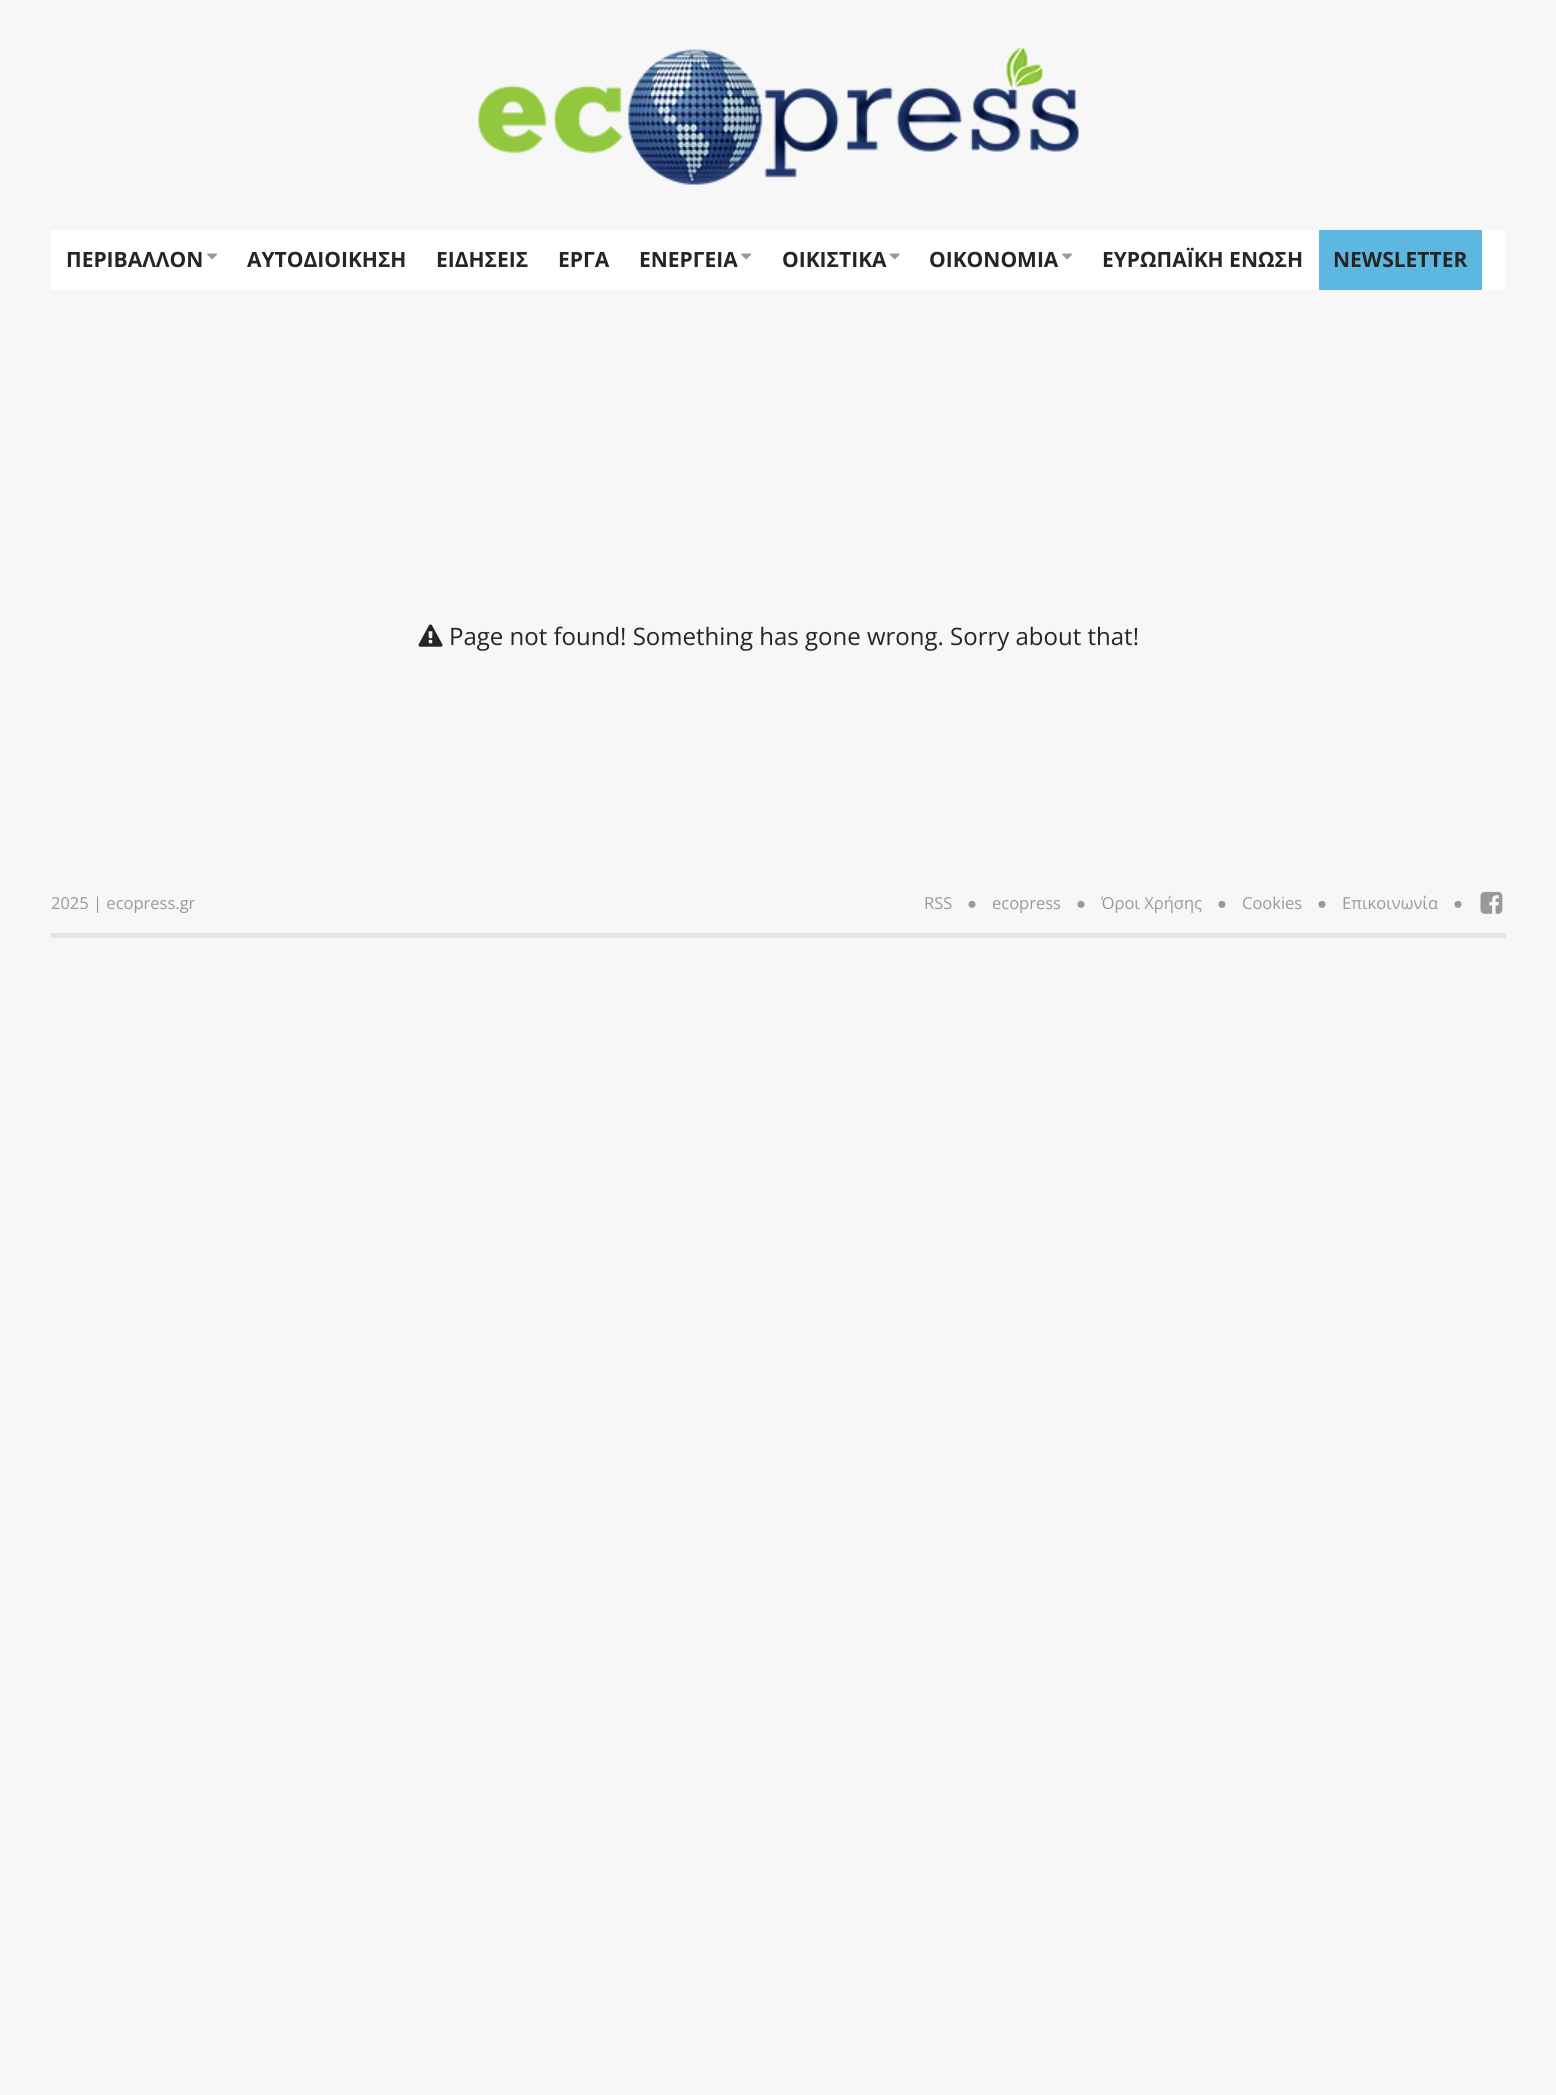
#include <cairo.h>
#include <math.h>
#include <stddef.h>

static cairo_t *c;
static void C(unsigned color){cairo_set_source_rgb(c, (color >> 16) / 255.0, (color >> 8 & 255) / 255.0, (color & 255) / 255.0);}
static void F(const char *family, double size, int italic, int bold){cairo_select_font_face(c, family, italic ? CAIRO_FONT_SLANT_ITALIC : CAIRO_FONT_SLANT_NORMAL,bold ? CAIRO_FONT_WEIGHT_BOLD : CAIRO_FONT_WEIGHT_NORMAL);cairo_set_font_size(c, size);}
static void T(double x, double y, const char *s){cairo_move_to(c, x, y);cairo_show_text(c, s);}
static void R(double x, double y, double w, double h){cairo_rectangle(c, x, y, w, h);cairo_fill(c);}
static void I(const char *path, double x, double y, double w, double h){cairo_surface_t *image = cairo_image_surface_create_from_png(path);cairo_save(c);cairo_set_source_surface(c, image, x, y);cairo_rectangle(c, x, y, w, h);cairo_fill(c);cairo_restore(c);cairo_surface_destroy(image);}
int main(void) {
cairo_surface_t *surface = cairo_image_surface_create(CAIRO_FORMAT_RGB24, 1556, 2095);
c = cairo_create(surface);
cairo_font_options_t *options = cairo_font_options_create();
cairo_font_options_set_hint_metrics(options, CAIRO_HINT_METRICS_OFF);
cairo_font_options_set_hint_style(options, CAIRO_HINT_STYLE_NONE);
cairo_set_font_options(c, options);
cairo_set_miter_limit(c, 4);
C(0xf7f7f7);
cairo_paint(c);
I("1.png",478,46,601,139);
C(0xffffff);
R(51,230,1455,60);
F("Open Sans",21,0,1);
C(0x252525);
T(66,267,"ΠΕΡΙΒΑΛΛΟΝ");
I("2.png",207,253,11,7);
T(247,267,"ΑΥΤΟΔΙΟΙΚΗΣΗ");
T(436,267,"ΕΙΔΗΣΕΙΣ");
T(558,267,"ΕΡΓΑ");
T(639,267,"ΕΝΕΡΓΕΙΑ");
I("2.png",741,253,11,7);
T(782,267,"ΟΙΚΙΣΤΙΚΑ");
I("3.png",889,253,11,7);
T(929,267,"ΟΙΚΟΝΟΜΙΑ");
I("2.png",1062,253,11,7);
T(1102,267,"ΕΥΡΩΠΑΪΚΗ ΕΝΩΣΗ");
C(0x5cb7e1);
R(1319,230,163,60);
C(0x252525);
T(1333,267,"NEWSLETTER");
I("4.png",418,624,25,23);
F("Open Sans",24,0,0);
T(449,645,"Page not found! Something has gone wrong. Sorry about that!");
C(0xe4e4e4);
R(51,933,1455,5);
F("Open Sans",16.5,0,0);
C(0x999999);
T(51,909,"2025 | ecopress.gr");
T(924,909,"RSS");
F("Liberation Sans",16.5,0,0);
T(967,909,"●");
F("Open Sans",16.5,0,0);
T(992,909,"ecopress");
F("Liberation Sans",16.5,0,0);
T(1076,909,"●");
F("Open Sans",16.5,0,0);
T(1101,909,"Όροι Χρήσης");
F("Liberation Sans",16.5,0,0);
T(1217,909,"●");
F("Open Sans",16.5,0,0);
T(1242,909,"Cookies");
F("Liberation Sans",16.5,0,0);
T(1317,909,"●");
F("Open Sans",16.5,0,0);
T(1342,909,"Επικοινωνία");
F("Liberation Sans",16.5,0,0);
T(1453,909,"●");
I("5.png",1480,891,23,23);
cairo_surface_write_to_png(surface, "o.png");
cairo_font_options_destroy(options);
cairo_destroy(c);
cairo_surface_destroy(surface);
return 0;
}
